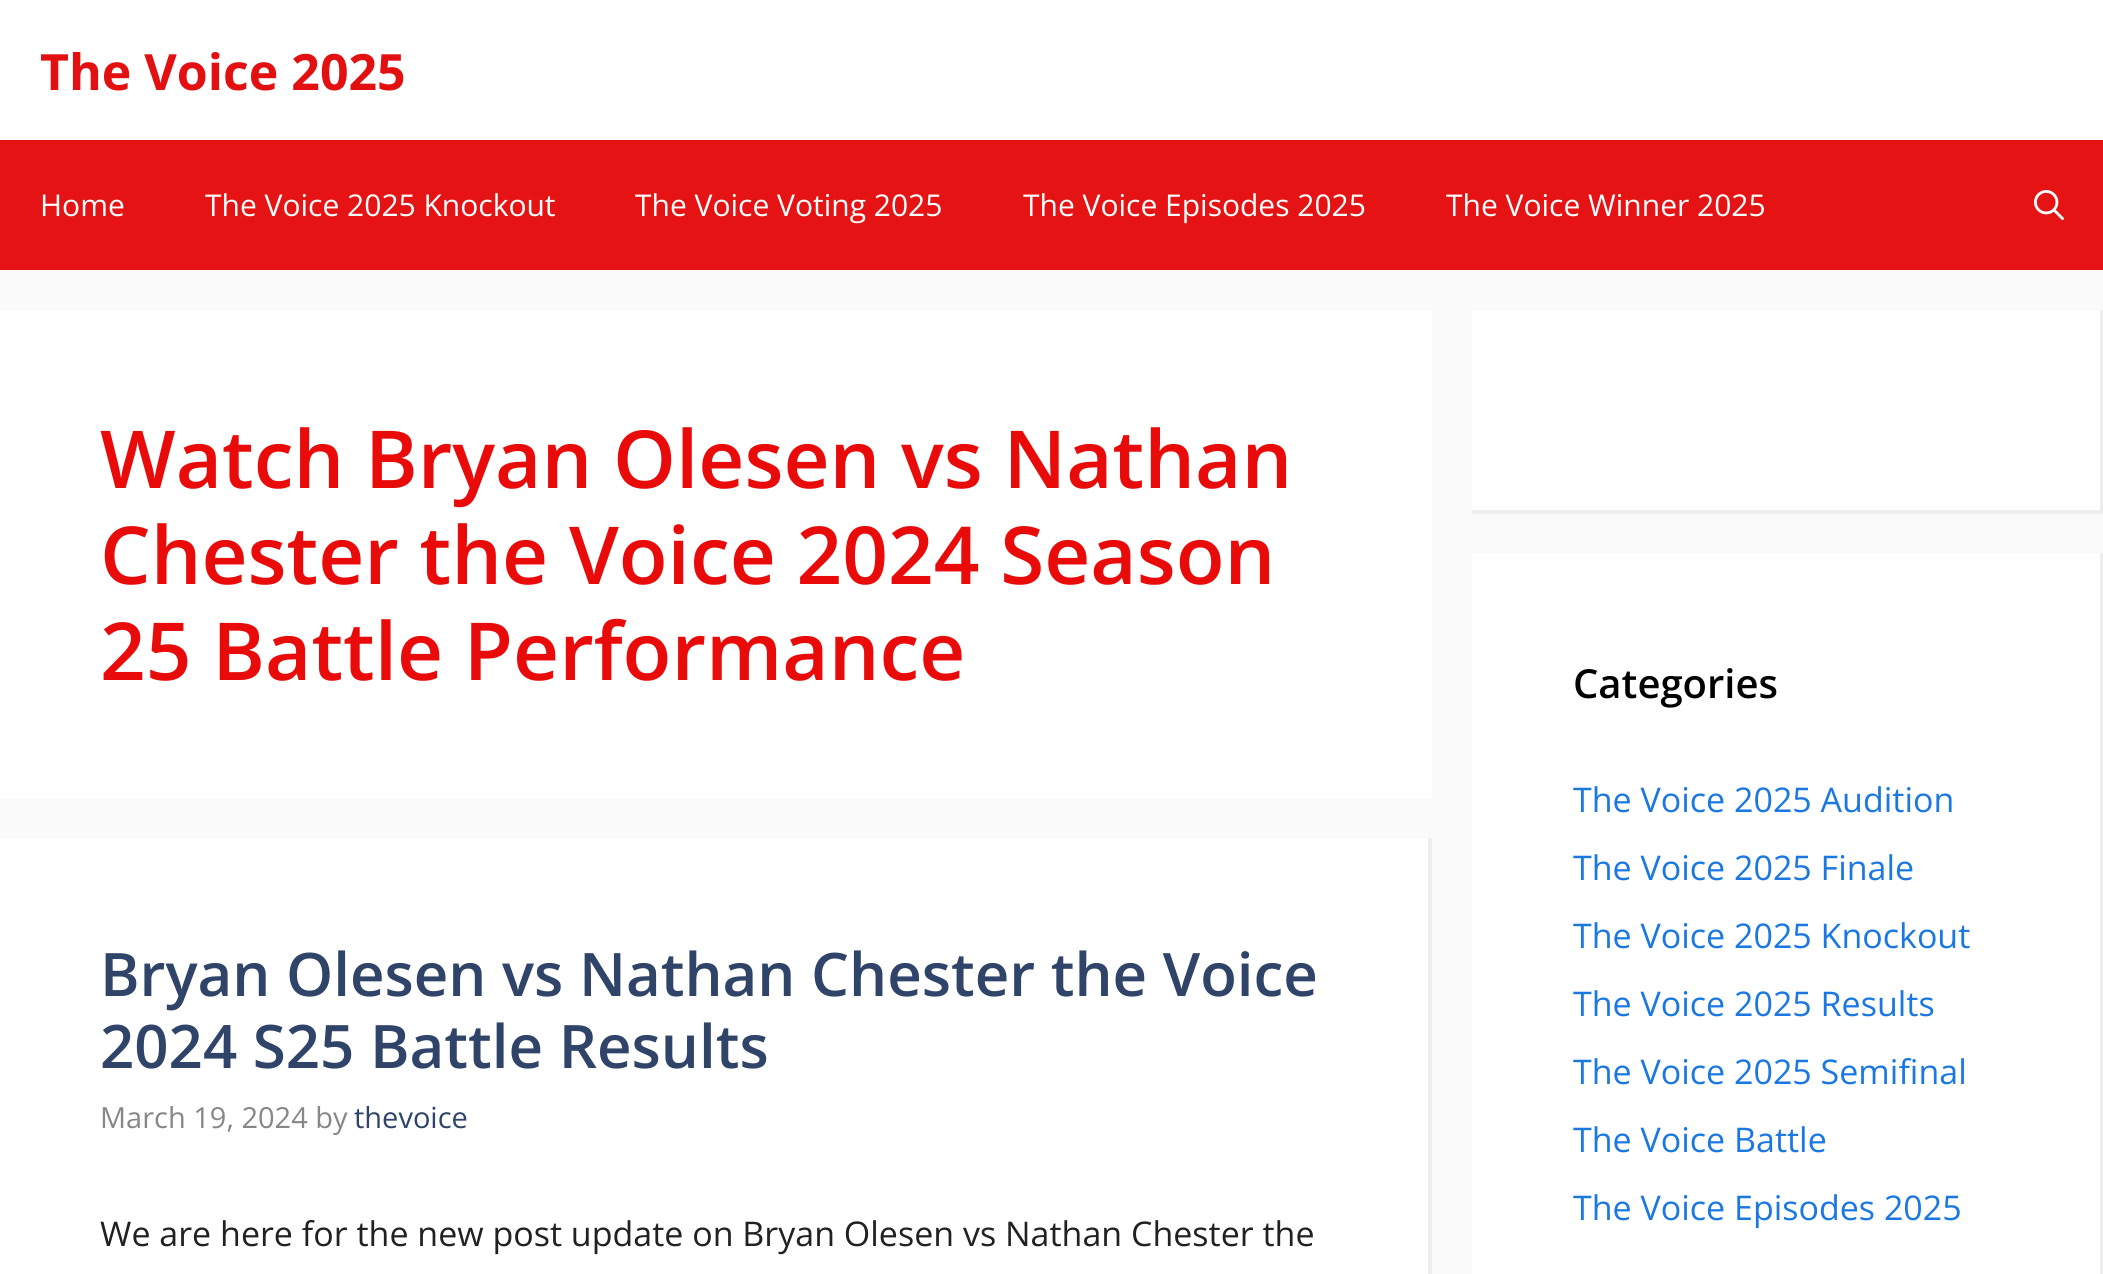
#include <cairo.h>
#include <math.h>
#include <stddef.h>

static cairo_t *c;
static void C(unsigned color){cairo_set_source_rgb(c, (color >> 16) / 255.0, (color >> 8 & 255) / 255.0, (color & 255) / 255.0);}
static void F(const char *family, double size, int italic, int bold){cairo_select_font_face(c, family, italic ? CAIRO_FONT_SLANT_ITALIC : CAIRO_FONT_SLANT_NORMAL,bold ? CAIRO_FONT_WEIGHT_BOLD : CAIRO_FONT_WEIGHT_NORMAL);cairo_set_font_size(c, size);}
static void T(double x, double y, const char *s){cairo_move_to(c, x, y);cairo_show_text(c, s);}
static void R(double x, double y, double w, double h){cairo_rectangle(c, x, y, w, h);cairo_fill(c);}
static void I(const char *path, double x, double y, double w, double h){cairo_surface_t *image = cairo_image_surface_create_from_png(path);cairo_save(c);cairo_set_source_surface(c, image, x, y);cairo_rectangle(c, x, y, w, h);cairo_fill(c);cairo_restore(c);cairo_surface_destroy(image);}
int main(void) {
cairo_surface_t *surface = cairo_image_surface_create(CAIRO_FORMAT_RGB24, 2103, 1274);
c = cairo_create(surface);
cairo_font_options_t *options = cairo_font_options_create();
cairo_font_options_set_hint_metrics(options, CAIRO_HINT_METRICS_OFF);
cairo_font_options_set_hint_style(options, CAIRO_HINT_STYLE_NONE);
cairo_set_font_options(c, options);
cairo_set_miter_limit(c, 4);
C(0xfafafa);
cairo_paint(c);
C(0xffffff);
R(0,0,2103,140);
F("Open Sans",50,0,1);
C(0xe21010);
T(40,90,"The Voice 2025");
C(0xe51313);
R(0,140,2103,130);
F("Open Sans",30,0,0);
C(0xffffff);
T(40,216,"Home");
T(205,216,"The Voice 2025 Knockout");
T(635,216,"The Voice Voting 2025");
T(1023,216,"The Voice Episodes 2025");
T(1446,216,"The Voice Winner 2025");
I("1.png",2034,190,30,30);
R(0,310,1432,488);
F("Open Sans SemiBold",80,0,0);
C(0xe90a0a);
T(100,488,"Watch Bryan Olesen vs Nathan");
T(100,584,"Chester the Voice 2024 Season");
T(100,680,"25 Battle Performance");
C(0xffffff);
R(0,838,1428,436);
C(0xededed);
cairo_new_path(c);
cairo_move_to(c,1432,838);
cairo_line_to(c,1432,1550);
cairo_line_to(c,1428,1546);
cairo_line_to(c,1428,838);
cairo_close_path(c);
cairo_fill(c);
F("Open Sans SemiBold",60,0,0);
C(0x2f4468);
T(100,996,"Bryan Olesen vs Nathan Chester the Voice");
T(100,1068,"2024 S25 Battle Results");
F("Open Sans",29,0,0);
C(0x878787);
T(100,1128,"March 19, 2024 by");
C(0x2f4468);
T(354,1128,"thevoice");
F("Open Sans",34,0,0);
C(0x212121);
T(100,1246,"We are here for the new post update on Bryan Olesen vs Nathan Chester the");
C(0xffffff);
R(1472,310,631,204);
C(0xededed);
cairo_new_path(c);
cairo_move_to(c,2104,310);
cairo_line_to(c,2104,514);
cairo_line_to(c,2100,510);
cairo_line_to(c,2100,310);
cairo_close_path(c);
cairo_fill(c);
cairo_set_source_rgba(c,0,0,0,0.07);
cairo_new_path(c);
cairo_move_to(c,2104,514);
cairo_line_to(c,1472,514);
cairo_line_to(c,1472,510);
cairo_line_to(c,2100,510);
cairo_close_path(c);
cairo_fill(c);
C(0xffffff);
R(1472,554,628,720);
C(0xededed);
cairo_new_path(c);
cairo_move_to(c,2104,554);
cairo_line_to(c,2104,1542);
cairo_line_to(c,2100,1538);
cairo_line_to(c,2100,554);
cairo_close_path(c);
cairo_fill(c);
F("Open Sans SemiBold",40,0,0);
C(0x000000);
T(1573,698,"Categories");
F("Open Sans",34,0,0);
C(0x1b78e2);
T(1573,812,"The Voice 2025 Audition");
T(1573,880,"The Voice 2025 Finale");
T(1573,948,"The Voice 2025 Knockout");
T(1573,1016,"The Voice 2025 Results");
T(1573,1084,"The Voice 2025 Semifinal");
T(1573,1152,"The Voice Battle");
T(1573,1220,"The Voice Episodes 2025");
cairo_surface_write_to_png(surface, "o.png");
cairo_font_options_destroy(options);
cairo_destroy(c);
cairo_surface_destroy(surface);
return 0;
}
